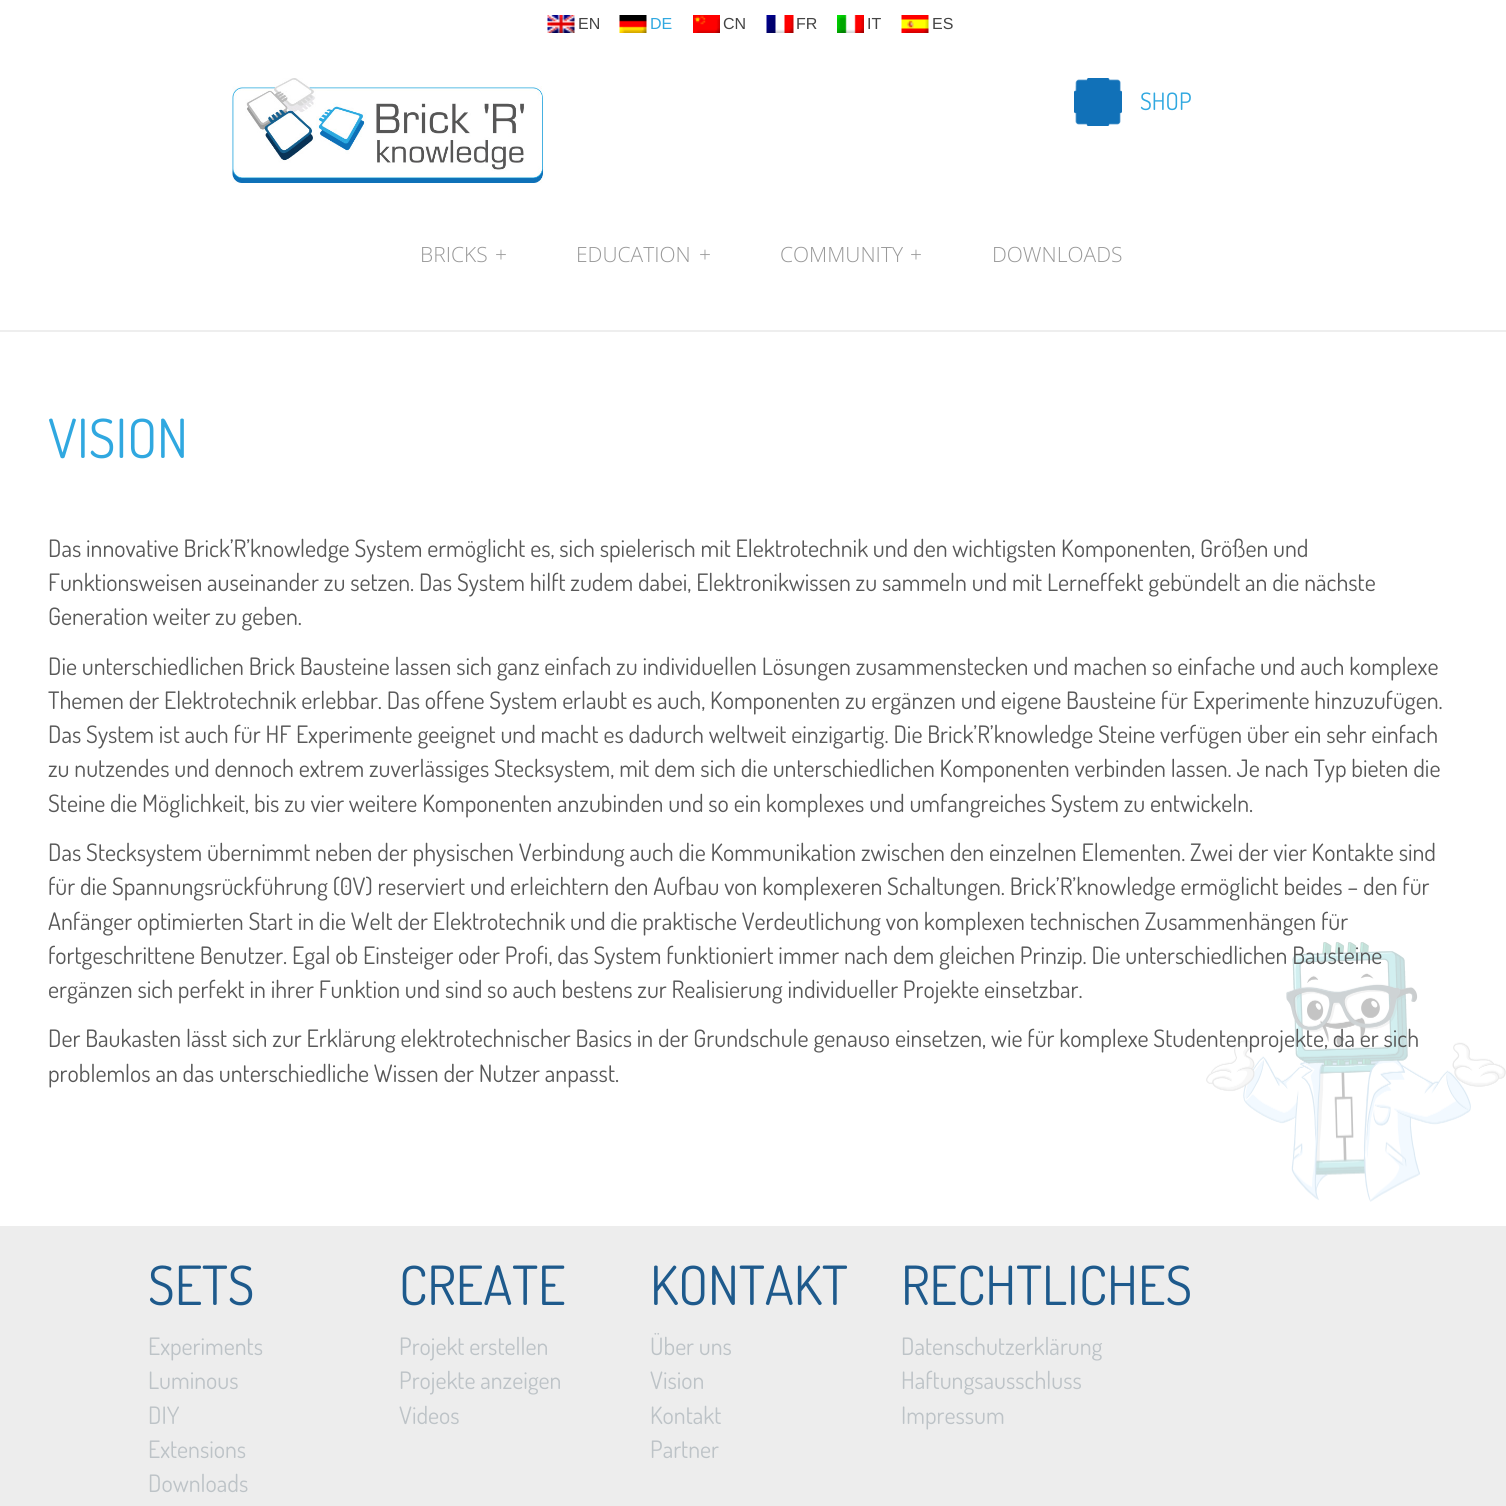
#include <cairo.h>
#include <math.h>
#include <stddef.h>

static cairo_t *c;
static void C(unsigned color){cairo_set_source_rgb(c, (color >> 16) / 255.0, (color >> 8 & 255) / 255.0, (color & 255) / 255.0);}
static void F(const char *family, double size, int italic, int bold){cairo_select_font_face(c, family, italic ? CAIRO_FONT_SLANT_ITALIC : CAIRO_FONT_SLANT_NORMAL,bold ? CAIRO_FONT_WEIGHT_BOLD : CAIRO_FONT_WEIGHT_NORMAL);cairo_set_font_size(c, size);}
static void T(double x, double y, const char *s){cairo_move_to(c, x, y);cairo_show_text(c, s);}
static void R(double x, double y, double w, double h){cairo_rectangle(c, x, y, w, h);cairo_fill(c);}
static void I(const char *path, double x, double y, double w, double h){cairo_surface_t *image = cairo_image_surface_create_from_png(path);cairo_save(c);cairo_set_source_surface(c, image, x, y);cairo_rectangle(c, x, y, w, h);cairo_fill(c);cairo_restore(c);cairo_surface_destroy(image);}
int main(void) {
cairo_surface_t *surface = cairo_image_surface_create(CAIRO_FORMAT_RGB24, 1506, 1506);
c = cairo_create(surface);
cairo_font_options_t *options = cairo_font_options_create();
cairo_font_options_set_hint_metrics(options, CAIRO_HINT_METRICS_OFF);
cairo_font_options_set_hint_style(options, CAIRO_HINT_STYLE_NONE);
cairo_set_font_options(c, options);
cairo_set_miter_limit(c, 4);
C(0xffffff);
cairo_paint(c);
I("1.png",547,15,28,18);
F("Liberation Sans",16,0,0);
C(0x444444);
T(578,29,"EN");
I("2.png",619,15,28,18);
C(0x30a8e0);
T(650,29,"DE");
I("3.png",693,15,27,18);
C(0x444444);
T(723,29,"CN");
I("4.png",766,15,28,18);
T(796,29,"FR");
I("5.png",837,15,27,18);
T(867,29,"IT");
I("6.png",901,15,28,18);
T(932,29,"ES");
I("7.png",232,78,313,105);
I("8.png",1074,78,48,48);
F("Dosis",24,0,0);
C(0x30a8e0);
T(1140,110,"SHOP");
C(0xeeeeee);
R(0,330,1506,2);
F("Open Sans Light",21,0,0);
C(0x999999);
T(420,262,"BRICKS");
T(495,262,"+");
T(576,262,"EDUCATION");
T(699,262,"+");
T(780,262,"COMMUNITY");
T(910,262,"+");
T(992,262,"DOWNLOADS");
I("9.png",1206,942,300,260);
F("Dosis",54,0,0);
C(0x30a8e0);
T(48,458,"VISION");
F("Dosis",24,0,0);
C(0x585858);
T(48,557,"Das innovative Brick’R’knowledge System ermöglicht es, sich spielerisch mit Elektrotechnik und den wichtigsten Komponenten, Größen und");
T(48,591,"Funktionsweisen auseinander zu setzen. Das System hilft zudem dabei, Elektronikwissen zu sammeln und mit Lerneffekt gebündelt an die nächste");
T(48,625,"Generation weiter zu geben.");
T(48,675,"Die unterschiedlichen Brick Bausteine lassen sich ganz einfach zu individuellen Lösungen zusammenstecken und machen so einfache und auch komplexe");
T(48,709,"Themen der Elektrotechnik erlebbar. Das offene System erlaubt es auch, Komponenten zu ergänzen und eigene Bausteine für Experimente hinzuzufügen.");
T(48,743,"Das System ist auch für HF Experimente geeignet und macht es dadurch weltweit einzigartig. Die Brick’R’knowledge Steine verfügen über ein sehr einfach");
T(48,777,"zu nutzendes und dennoch extrem zuverlässiges Stecksystem, mit dem sich die unterschiedlichen Komponenten verbinden lassen. Je nach Typ bieten die");
T(48,812,"Steine die Möglichkeit, bis zu vier weitere Komponenten anzubinden und so ein komplexes und umfangreiches System zu entwickeln.");
T(48,861,"Das Stecksystem übernimmt neben der physischen Verbindung auch die Kommunikation zwischen den einzelnen Elementen. Zwei der vier Kontakte sind");
T(48,895,"für die Spannungsrückführung (0V) reserviert und erleichtern den Aufbau von komplexeren Schaltungen. Brick’R’knowledge ermöglicht beides – den für");
T(48,930,"Anfänger optimierten Start in die Welt der Elektrotechnik und die praktische Verdeutlichung von komplexen technischen Zusammenhängen für");
T(48,964,"fortgeschrittene Benutzer. Egal ob Einsteiger oder Profi, das System funktioniert immer nach dem gleichen Prinzip. Die unterschiedlichen Bausteine");
T(48,998,"ergänzen sich perfekt in ihrer Funktion und sind so auch bestens zur Realisierung individueller Projekte einsetzbar.");
T(48,1047,"Der Baukasten lässt sich zur Erklärung elektrotechnischer Basics in der Grundschule genauso einsetzen, wie für komplexe Studentenprojekte, da er sich");
T(48,1082,"problemlos an das unterschiedliche Wissen der Nutzer anpasst.");
C(0xededed);
R(0,1226,1506,280);
F("Dosis",54,0,0);
C(0x1e5a8c);
T(148,1305,"SETS");
F("Dosis",24,0,0);
C(0xbdc3c7);
T(148,1355,"Experiments");
T(148,1389,"Luminous");
T(148,1424,"DIY");
T(148,1458,"Extensions");
T(148,1492,"Downloads");
F("Dosis",54,0,0);
C(0x1e5a8c);
T(399,1305,"CREATE");
F("Dosis",24,0,0);
C(0xbdc3c7);
T(399,1355,"Projekt erstellen");
T(399,1389,"Projekte anzeigen");
T(399,1424,"Videos");
F("Dosis",54,0,0);
C(0x1e5a8c);
T(650,1305,"KONTAKT");
F("Dosis",24,0,0);
C(0xbdc3c7);
T(650,1355,"Über uns");
T(650,1389,"Vision");
T(650,1424,"Kontakt");
T(650,1458,"Partner");
F("Dosis",54,0,0);
C(0x1e5a8c);
T(901,1305,"RECHTLICHES");
F("Dosis",24,0,0);
C(0xbdc3c7);
T(901,1355,"Datenschutzerklärung");
T(901,1389,"Haftungsausschluss");
T(901,1424,"Impressum");
cairo_surface_write_to_png(surface, "o.png");
cairo_font_options_destroy(options);
cairo_destroy(c);
cairo_surface_destroy(surface);
return 0;
}
